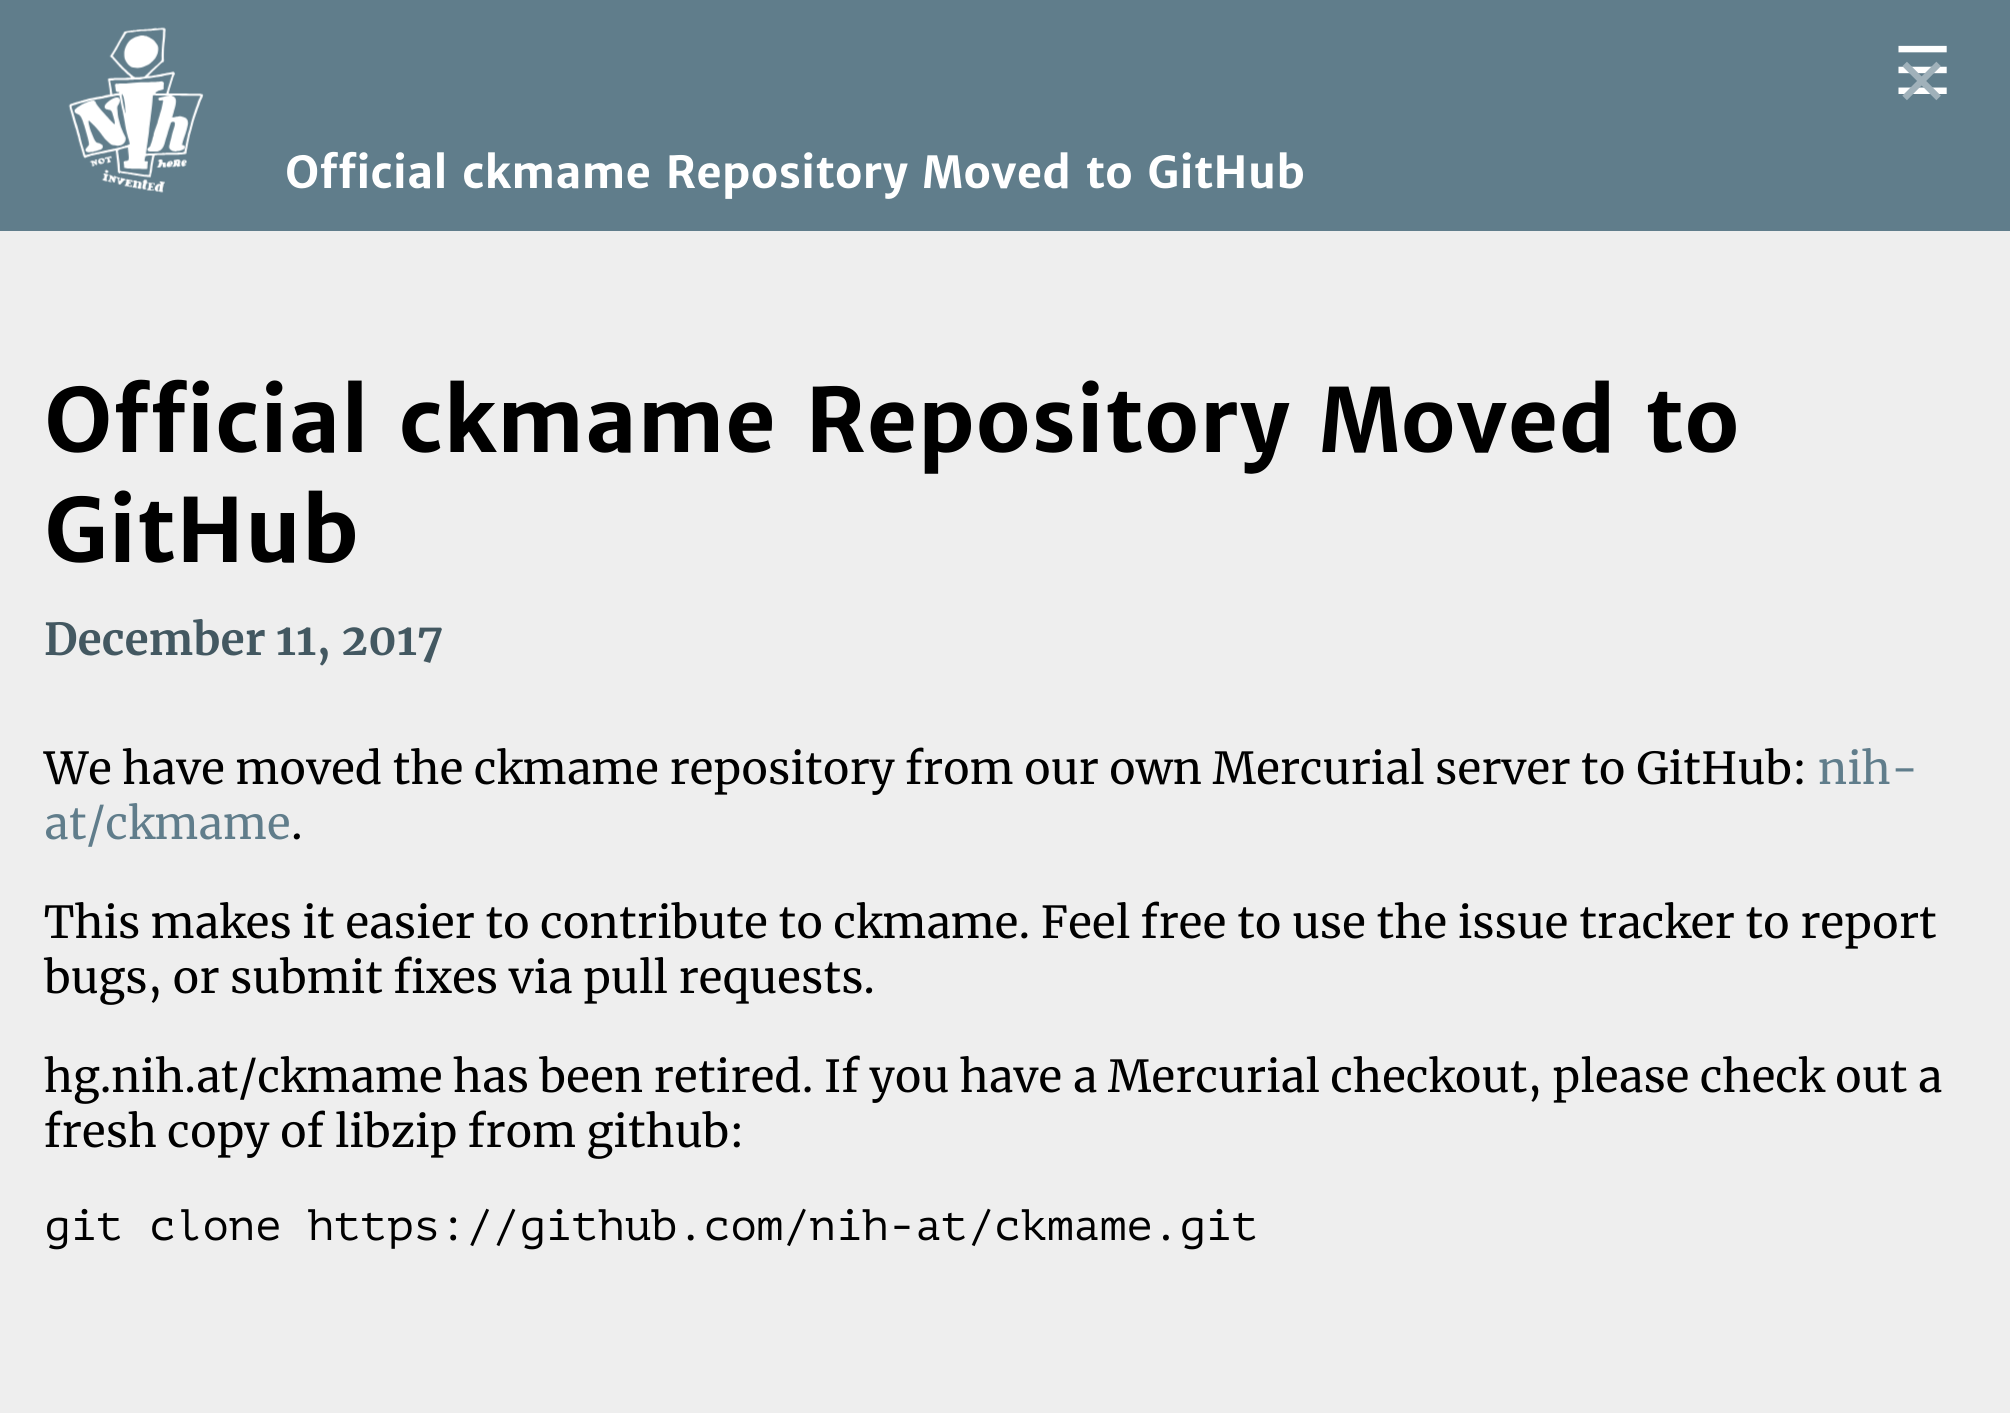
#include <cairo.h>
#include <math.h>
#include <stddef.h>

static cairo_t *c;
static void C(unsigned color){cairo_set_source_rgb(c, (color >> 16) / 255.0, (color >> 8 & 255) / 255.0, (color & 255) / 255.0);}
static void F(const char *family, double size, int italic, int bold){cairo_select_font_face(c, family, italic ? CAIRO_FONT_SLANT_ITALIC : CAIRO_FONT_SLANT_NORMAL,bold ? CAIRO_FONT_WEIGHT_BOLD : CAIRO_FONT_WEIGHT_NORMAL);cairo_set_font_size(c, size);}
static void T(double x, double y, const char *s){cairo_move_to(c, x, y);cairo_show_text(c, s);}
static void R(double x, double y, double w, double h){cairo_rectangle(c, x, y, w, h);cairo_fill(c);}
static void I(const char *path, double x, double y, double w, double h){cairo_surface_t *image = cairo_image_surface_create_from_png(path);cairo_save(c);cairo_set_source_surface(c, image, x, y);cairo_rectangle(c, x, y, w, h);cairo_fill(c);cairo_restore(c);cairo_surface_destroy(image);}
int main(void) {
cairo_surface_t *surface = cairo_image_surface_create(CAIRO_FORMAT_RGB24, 2010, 1413);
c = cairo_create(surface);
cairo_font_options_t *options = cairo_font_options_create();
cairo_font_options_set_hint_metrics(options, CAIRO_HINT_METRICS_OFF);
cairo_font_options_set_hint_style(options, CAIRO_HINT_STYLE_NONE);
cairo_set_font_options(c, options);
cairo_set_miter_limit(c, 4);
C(0xeeeeee);
cairo_paint(c);
C(0x607d8b);
R(0,0,2010,231);
I("1.png",68,27,136,166);
F("DejaVu Sans",66,0,0);
C(0xffffff);
T(1893,94,"☰");
C(0xa0b1ba);
T(1894,105,"✕");
F("Merriweather Sans",44,0,1);
C(0xffffff);
T(285,188,"Official ckmame Repository Moved to GitHub");
F("Merriweather Sans",88,0,1);
C(0x000000);
T(44,452,"Official ckmame Repository Moved to");
T(44,562,"GitHub");
F("Merriweather",44,0,1);
C(0x435861);
T(44,655,"December 11, 2017");
F("Merriweather",44,0,0);
C(0x000000);
T(44,784,"We have moved the ckmame repository from our own Mercurial server to GitHub:");
C(0x607d8b);
T(1818,784,"nih-");
T(44,839,"at/ckmame");
C(0x000000);
T(291,839,".");
T(44,938,"This makes it easier to contribute to ckmame. Feel free to use the issue tracker to report");
T(44,993,"bugs, or submit fixes via pull requests.");
T(44,1092,"hg.nih.at/ckmame has been retired. If you have a Mercurial checkout, please check out a");
T(44,1147,"fresh copy of libzip from github:");
F("PT Mono",44,0,0);
T(44,1240,"git clone https://github.com/nih-at/ckmame.git");
cairo_surface_write_to_png(surface, "o.png");
cairo_font_options_destroy(options);
cairo_destroy(c);
cairo_surface_destroy(surface);
return 0;
}
